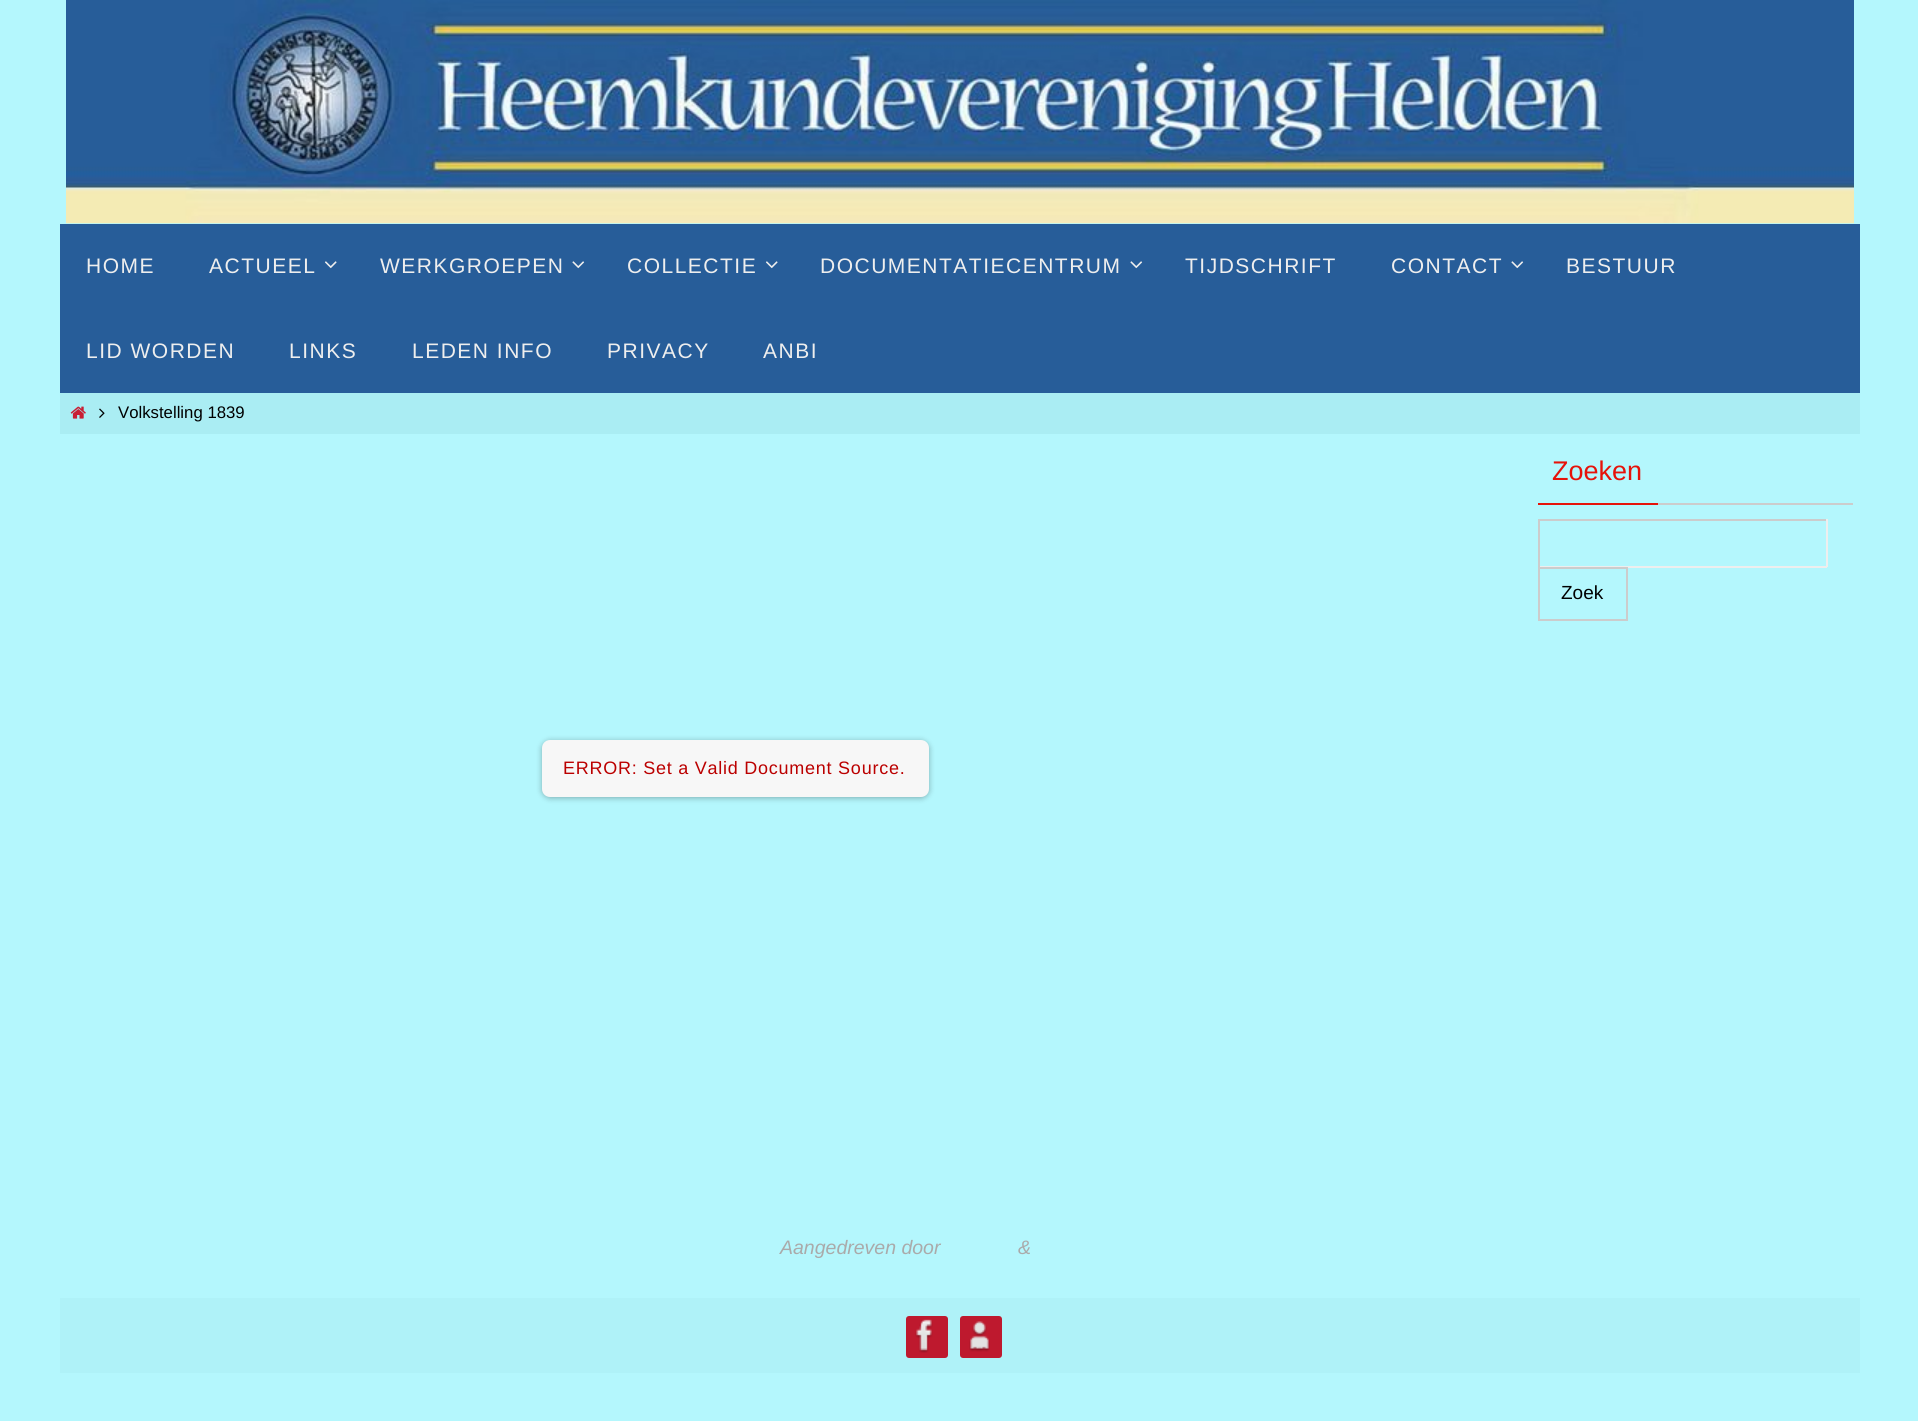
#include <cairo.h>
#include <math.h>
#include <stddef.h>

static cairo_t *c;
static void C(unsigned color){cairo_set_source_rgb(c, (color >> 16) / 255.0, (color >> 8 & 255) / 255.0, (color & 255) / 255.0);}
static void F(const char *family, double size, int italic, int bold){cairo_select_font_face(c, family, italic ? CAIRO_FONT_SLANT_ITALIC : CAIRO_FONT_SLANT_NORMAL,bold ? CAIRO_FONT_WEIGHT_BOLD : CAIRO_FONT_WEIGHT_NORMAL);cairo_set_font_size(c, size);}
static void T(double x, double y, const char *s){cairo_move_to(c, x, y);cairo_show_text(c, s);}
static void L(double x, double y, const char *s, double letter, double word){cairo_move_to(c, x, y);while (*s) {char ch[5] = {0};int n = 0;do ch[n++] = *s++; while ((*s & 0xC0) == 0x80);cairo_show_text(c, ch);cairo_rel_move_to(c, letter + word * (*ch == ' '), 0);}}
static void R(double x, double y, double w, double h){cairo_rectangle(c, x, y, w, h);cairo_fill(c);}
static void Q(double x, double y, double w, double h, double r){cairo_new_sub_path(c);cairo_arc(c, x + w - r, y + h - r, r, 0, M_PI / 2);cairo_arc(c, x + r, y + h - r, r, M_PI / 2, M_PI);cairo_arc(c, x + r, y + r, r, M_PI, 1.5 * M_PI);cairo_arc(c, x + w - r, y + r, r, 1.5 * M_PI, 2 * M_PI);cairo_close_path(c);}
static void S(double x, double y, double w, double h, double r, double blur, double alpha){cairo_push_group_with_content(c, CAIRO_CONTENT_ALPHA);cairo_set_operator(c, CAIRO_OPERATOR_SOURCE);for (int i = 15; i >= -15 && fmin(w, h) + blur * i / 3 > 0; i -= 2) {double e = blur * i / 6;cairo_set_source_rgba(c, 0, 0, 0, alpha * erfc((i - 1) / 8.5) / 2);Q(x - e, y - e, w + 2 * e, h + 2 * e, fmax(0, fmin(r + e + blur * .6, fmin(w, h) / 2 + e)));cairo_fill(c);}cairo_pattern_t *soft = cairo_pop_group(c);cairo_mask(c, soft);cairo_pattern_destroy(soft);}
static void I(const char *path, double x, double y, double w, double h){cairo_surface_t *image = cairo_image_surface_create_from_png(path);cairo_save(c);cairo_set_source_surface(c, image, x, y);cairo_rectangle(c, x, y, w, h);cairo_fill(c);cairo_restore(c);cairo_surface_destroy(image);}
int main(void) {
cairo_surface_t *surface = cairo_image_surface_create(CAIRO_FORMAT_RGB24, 1918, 1421);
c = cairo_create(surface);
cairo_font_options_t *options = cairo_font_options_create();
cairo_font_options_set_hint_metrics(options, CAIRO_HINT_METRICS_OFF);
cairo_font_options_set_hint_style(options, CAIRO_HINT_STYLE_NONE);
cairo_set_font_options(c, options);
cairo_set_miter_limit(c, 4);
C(0xb4f7fd);
cairo_paint(c);
I("1.png",66,0,1788,224);
C(0x275d99);
R(60,224,1800,169);
F("Liberation Sans",21,0,0);
C(0xeeeeee);
L(86,273,"HOME",1.5,0);
L(209,273,"ACTUEEL",1.5,0);
I("2.png",325,261,12,8);
L(380,273,"WERKGROEPEN",1.5,0);
I("3.png",572,261,13,8);
L(627,273,"COLLECTIE",1.5,0);
I("2.png",766,261,12,8);
L(820,273,"DOCUMENTATIECENTRUM",1.5,0);
I("3.png",1130,261,13,8);
L(1185,273,"TIJDSCHRIFT",1.5,0);
L(1391,273,"CONTACT",1.5,0);
I("3.png",1511,261,13,8);
L(1566,273,"BESTUUR",1.5,0);
L(86,358,"LID WORDEN",1.5,0);
L(289,358,"LINKS",1.5,0);
L(412,358,"LEDEN INFO",1.5,0);
L(607,358,"PRIVACY",1.5,0);
L(763,358,"ANBI",1.5,0);
C(0xaaedf3);
R(60,393,1800,41);
I("4.png",70,406,16,13);
I("5.png",99,408,6,10);
F("Liberation Sans",16.75,0,0);
C(0x000000);
T(118,418,"Volkstelling 1839");
C(0xcccccc);
R(1658,503,195,2);
C(0xe6130a);
R(1538,503,120,2);
F("Liberation Sans",27,0,0);
T(1552,480,"Zoeken");
C(0xcccccc);
R(1538,519,289,2);
C(0xeeeeee);
R(1826,519,2,48);
R(1538,566,289,2);
C(0xcccccc);
R(1538,519,2,48);
cairo_rectangle(c,1539,568,88,52);
cairo_stroke(c);
F("Liberation Sans",19,0,0);
C(0x000000);
T(1561,599,"Zoek");
C(0x000000);
S(542,741,387,57,8,3,.3);
C(0xf7f7f7);
Q(542,740,387,57,8);
cairo_fill(c);
F("Liberation Sans",18,0,0);
C(0xbb0000);
L(563,774,"ERROR: Set a Valid Document Source.",.75,0);
F("Liberation Sans",19.5,1,0);
C(0xaaaaaa);
T(780,1254,"Aangedreven door");
T(1018,1254,"&");
C(0xaff2f8);
R(60,1298,1800,75);
C(0xbe192e);
Q(906,1316,42,42,3);
cairo_fill(c);
I("6.png",915,1319,18,34);
Q(960,1316,42,42,3);
cairo_fill(c);
I("7.png",969,1321,21,31);
cairo_surface_write_to_png(surface, "o.png");
cairo_font_options_destroy(options);
cairo_destroy(c);
cairo_surface_destroy(surface);
return 0;
}
